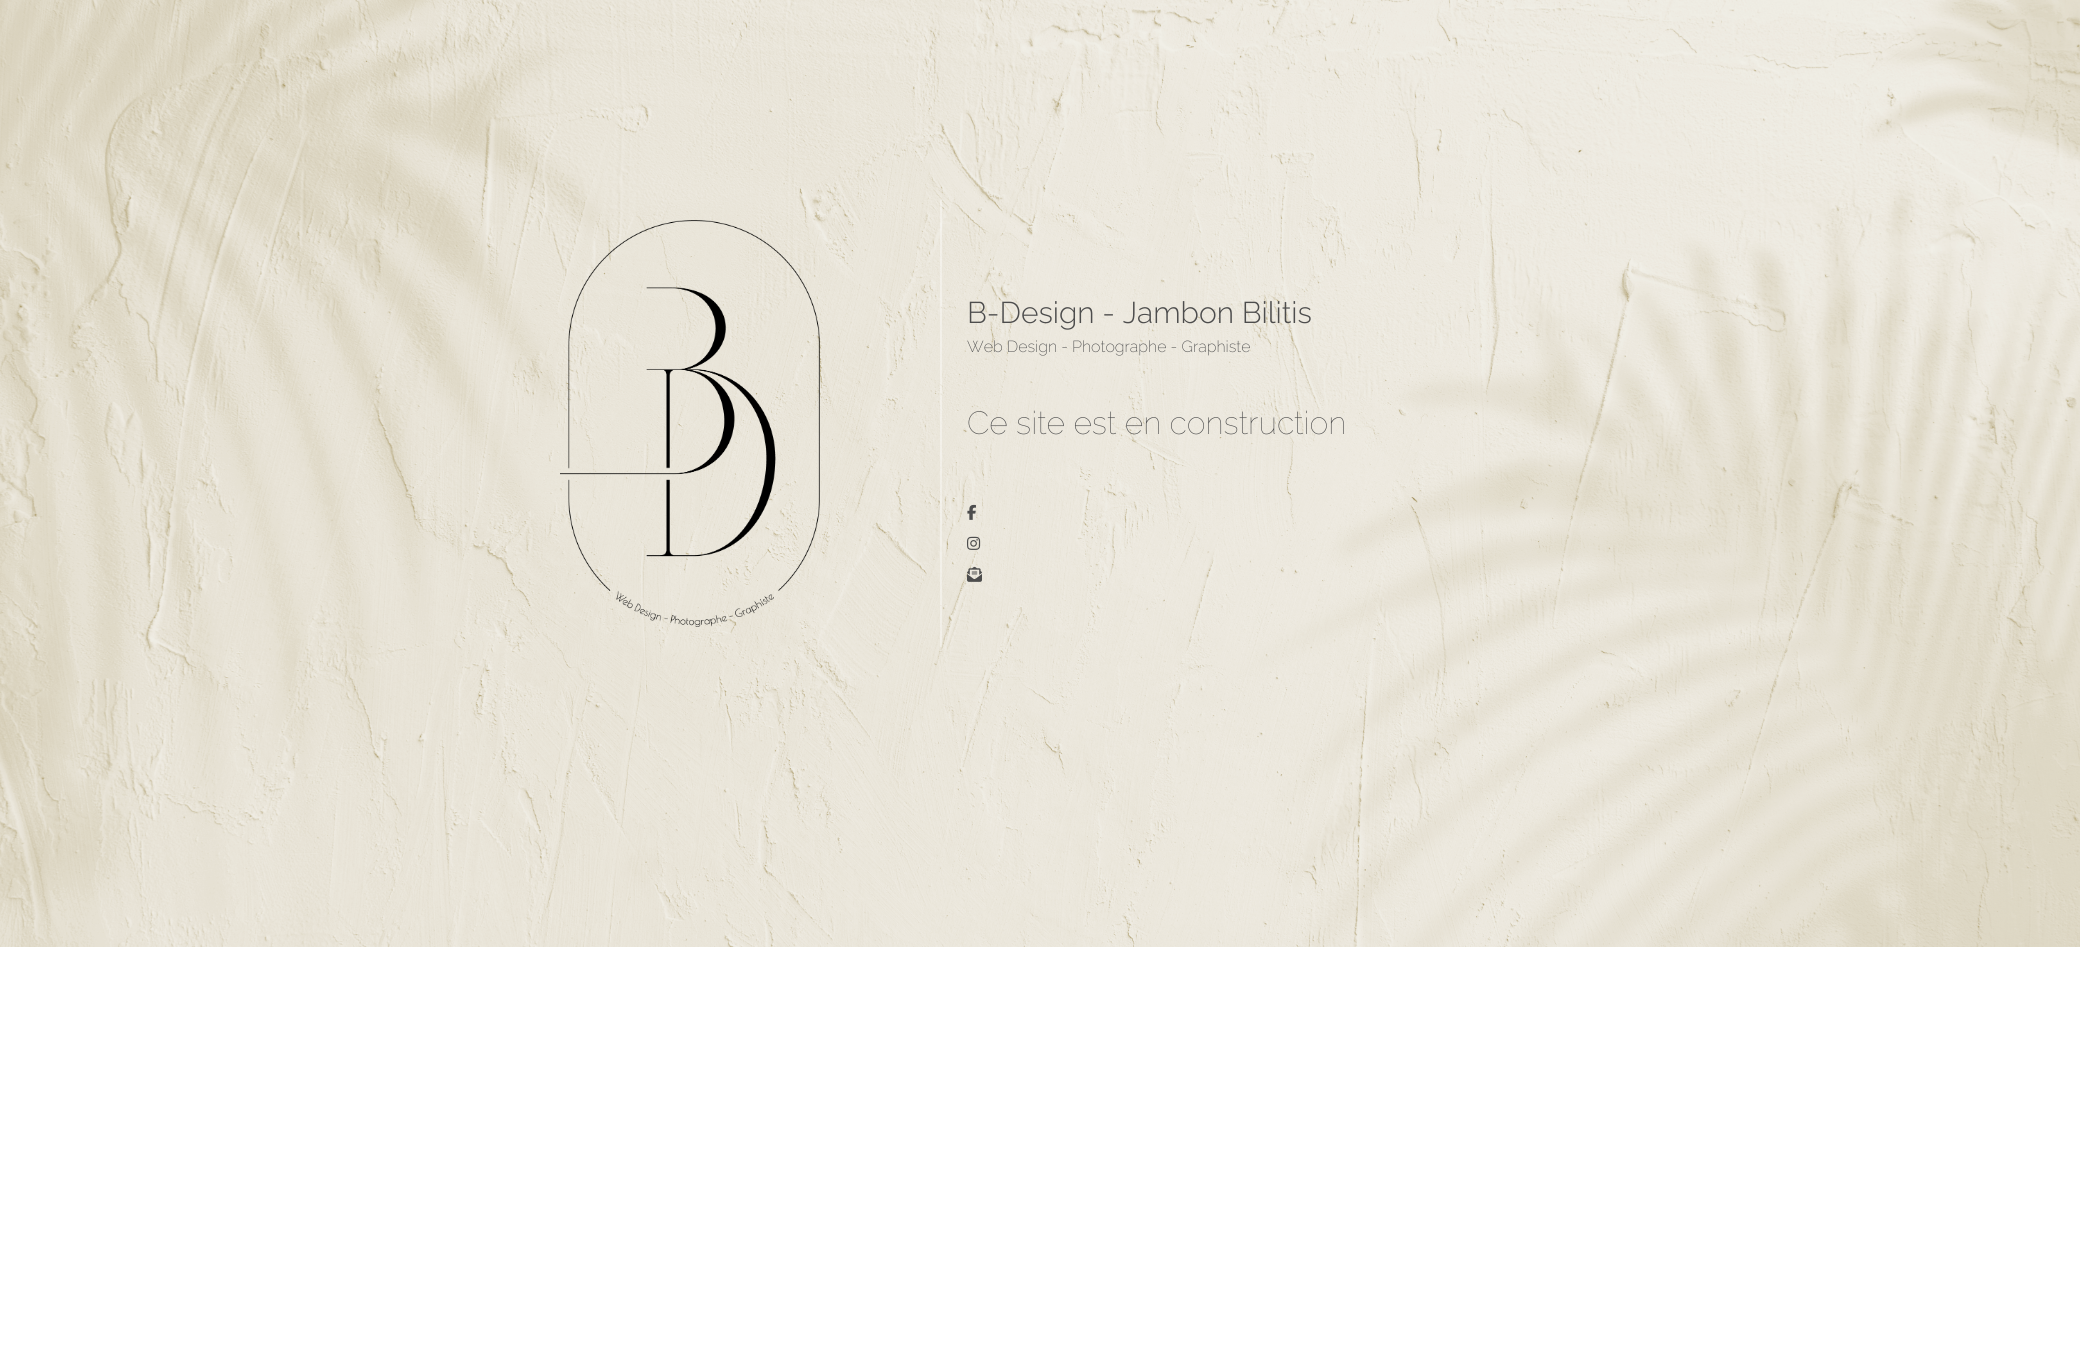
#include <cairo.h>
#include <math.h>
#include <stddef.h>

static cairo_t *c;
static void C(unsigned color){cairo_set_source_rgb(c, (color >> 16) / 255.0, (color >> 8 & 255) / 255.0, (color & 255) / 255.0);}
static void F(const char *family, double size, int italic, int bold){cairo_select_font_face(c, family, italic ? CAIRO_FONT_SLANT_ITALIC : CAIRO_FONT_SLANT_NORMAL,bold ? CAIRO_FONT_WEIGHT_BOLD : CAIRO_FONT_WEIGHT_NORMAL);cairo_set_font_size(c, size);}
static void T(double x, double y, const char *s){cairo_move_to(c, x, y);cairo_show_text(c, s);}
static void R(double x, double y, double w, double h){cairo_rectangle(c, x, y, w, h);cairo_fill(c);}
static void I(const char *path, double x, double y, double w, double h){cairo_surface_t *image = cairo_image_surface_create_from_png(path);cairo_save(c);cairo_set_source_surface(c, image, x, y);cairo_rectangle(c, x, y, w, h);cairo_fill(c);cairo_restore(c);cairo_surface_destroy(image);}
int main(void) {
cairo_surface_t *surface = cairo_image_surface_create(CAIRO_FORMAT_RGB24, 2080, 1354);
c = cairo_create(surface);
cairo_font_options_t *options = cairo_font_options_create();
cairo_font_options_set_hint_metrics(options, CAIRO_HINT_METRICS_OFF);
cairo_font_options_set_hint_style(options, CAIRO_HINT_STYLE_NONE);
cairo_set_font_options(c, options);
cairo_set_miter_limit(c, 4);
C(0xffffff);
cairo_paint(c);
I("1.png",0,0,2080,947);
I("2.png",560,220,260,407);
cairo_set_source_rgba(c,1,1,1,0.38);
R(940,200,2,447);
F("Raleway Light",30,0,0);
C(0x4d4d4d);
T(967,323,"B-Design - Jambon Bilitis");
F("Raleway ExtraLight",16,0,0);
T(967,352,"Web Design - Photographe - Graphiste");
F("Raleway Thin",32,0,0);
T(967,434,"Ce site est en construction");
I("3.png",967,504,9,16);
I("4.png",967,536,14,14);
I("5.png",967,566,15,16);
cairo_surface_write_to_png(surface, "o.png");
cairo_font_options_destroy(options);
cairo_destroy(c);
cairo_surface_destroy(surface);
return 0;
}
